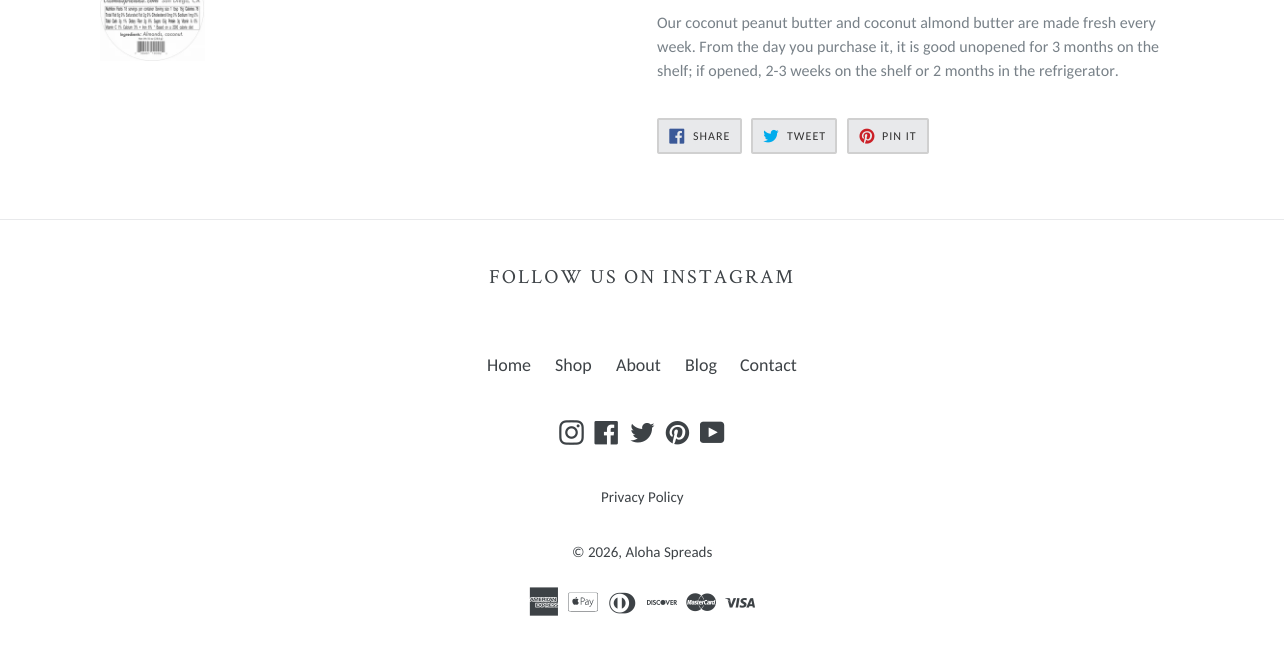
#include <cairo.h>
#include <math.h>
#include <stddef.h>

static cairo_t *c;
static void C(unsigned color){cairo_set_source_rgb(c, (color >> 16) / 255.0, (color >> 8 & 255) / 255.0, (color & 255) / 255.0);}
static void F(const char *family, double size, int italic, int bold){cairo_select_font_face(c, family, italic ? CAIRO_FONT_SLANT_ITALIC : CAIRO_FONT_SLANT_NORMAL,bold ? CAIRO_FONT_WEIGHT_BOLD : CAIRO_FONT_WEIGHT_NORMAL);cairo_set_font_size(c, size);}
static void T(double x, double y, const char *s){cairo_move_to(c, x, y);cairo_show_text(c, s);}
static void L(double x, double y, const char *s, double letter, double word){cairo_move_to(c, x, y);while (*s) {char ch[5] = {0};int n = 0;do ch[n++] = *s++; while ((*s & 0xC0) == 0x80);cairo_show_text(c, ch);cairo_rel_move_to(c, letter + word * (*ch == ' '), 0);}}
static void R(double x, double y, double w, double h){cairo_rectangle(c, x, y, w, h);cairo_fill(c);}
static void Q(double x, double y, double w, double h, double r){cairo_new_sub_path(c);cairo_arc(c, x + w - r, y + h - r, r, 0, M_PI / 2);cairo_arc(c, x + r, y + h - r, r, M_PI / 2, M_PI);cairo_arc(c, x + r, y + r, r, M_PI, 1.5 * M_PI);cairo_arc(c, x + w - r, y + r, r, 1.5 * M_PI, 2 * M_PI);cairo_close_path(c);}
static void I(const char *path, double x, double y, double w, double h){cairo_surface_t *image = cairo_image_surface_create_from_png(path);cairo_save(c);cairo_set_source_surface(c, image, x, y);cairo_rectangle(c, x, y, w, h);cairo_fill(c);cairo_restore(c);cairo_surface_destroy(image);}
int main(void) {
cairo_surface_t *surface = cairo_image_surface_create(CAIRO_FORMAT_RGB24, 1284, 652);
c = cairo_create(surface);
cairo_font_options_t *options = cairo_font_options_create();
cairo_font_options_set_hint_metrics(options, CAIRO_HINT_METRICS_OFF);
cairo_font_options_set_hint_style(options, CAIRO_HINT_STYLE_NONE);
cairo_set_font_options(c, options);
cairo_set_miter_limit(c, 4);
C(0xffffff);
cairo_paint(c);
I("1.png",100,0,105,61);
F("Carlito",16,0,0);
C(0x788188);
T(657,28,"Our coconut peanut butter and coconut almond butter are made fresh every");
T(657,52,"week. From the day you purchase it, it is good unopened for 3 months on the");
T(657,76,"shelf; if opened, 2-3 weeks on the shelf or 2 months in the refrigerator.");
C(0xe8e9eb);
Q(658,119,83,34,1);
cairo_fill_preserve(c);
C(0xd0d0d0);
cairo_stroke(c);
I("2.png",669,128,16,16);
F("Carlito",12,0,0);
C(0x333333);
L(693,140,"SHARE",1,0);
C(0xe8e9eb);
Q(752,119,84,34,1);
cairo_fill_preserve(c);
C(0xd0d0d0);
cairo_stroke(c);
I("3.png",763,129,16,14);
C(0x333333);
L(787,140,"TWEET",1,0);
C(0xe8e9eb);
Q(848,119,80,34,1);
cairo_fill_preserve(c);
C(0xd0d0d0);
cairo_stroke(c);
I("4.png",859,128,16,16);
C(0x333333);
L(882,140,"PIN IT",1,0);
C(0xe8e9eb);
R(0,219,1284,1);
F("Crimson Text",20,0,0);
C(0x3d4246);
L(489,283,"FOLLOW US ON INSTAGRAM",2,0);
F("Carlito",18,0,0);
T(487,371,"Home");
T(555,371,"Shop");
T(616,371,"About");
T(685,371,"Blog");
T(740,371,"Contact");
I("5.png",559,420,25,25);
I("6.png",594,421,24,24);
I("7.png",630,423,25,20);
I("8.png",665,421,25,24);
I("9.png",700,421,25,22);
F("Carlito",15,0,0);
T(601,502,"Privacy Policy");
T(572,557,"© 2026, Aloha Spreads");
I("10.png",529,587,30,29);
I("11.png",568,592,30,20);
I("12.png",609,592,27,22);
I("13.png",647,599,30,6);
I("14.png",686,593,30,19);
I("15.png",725,598,30,10);
cairo_surface_write_to_png(surface, "o.png");
cairo_font_options_destroy(options);
cairo_destroy(c);
cairo_surface_destroy(surface);
return 0;
}
